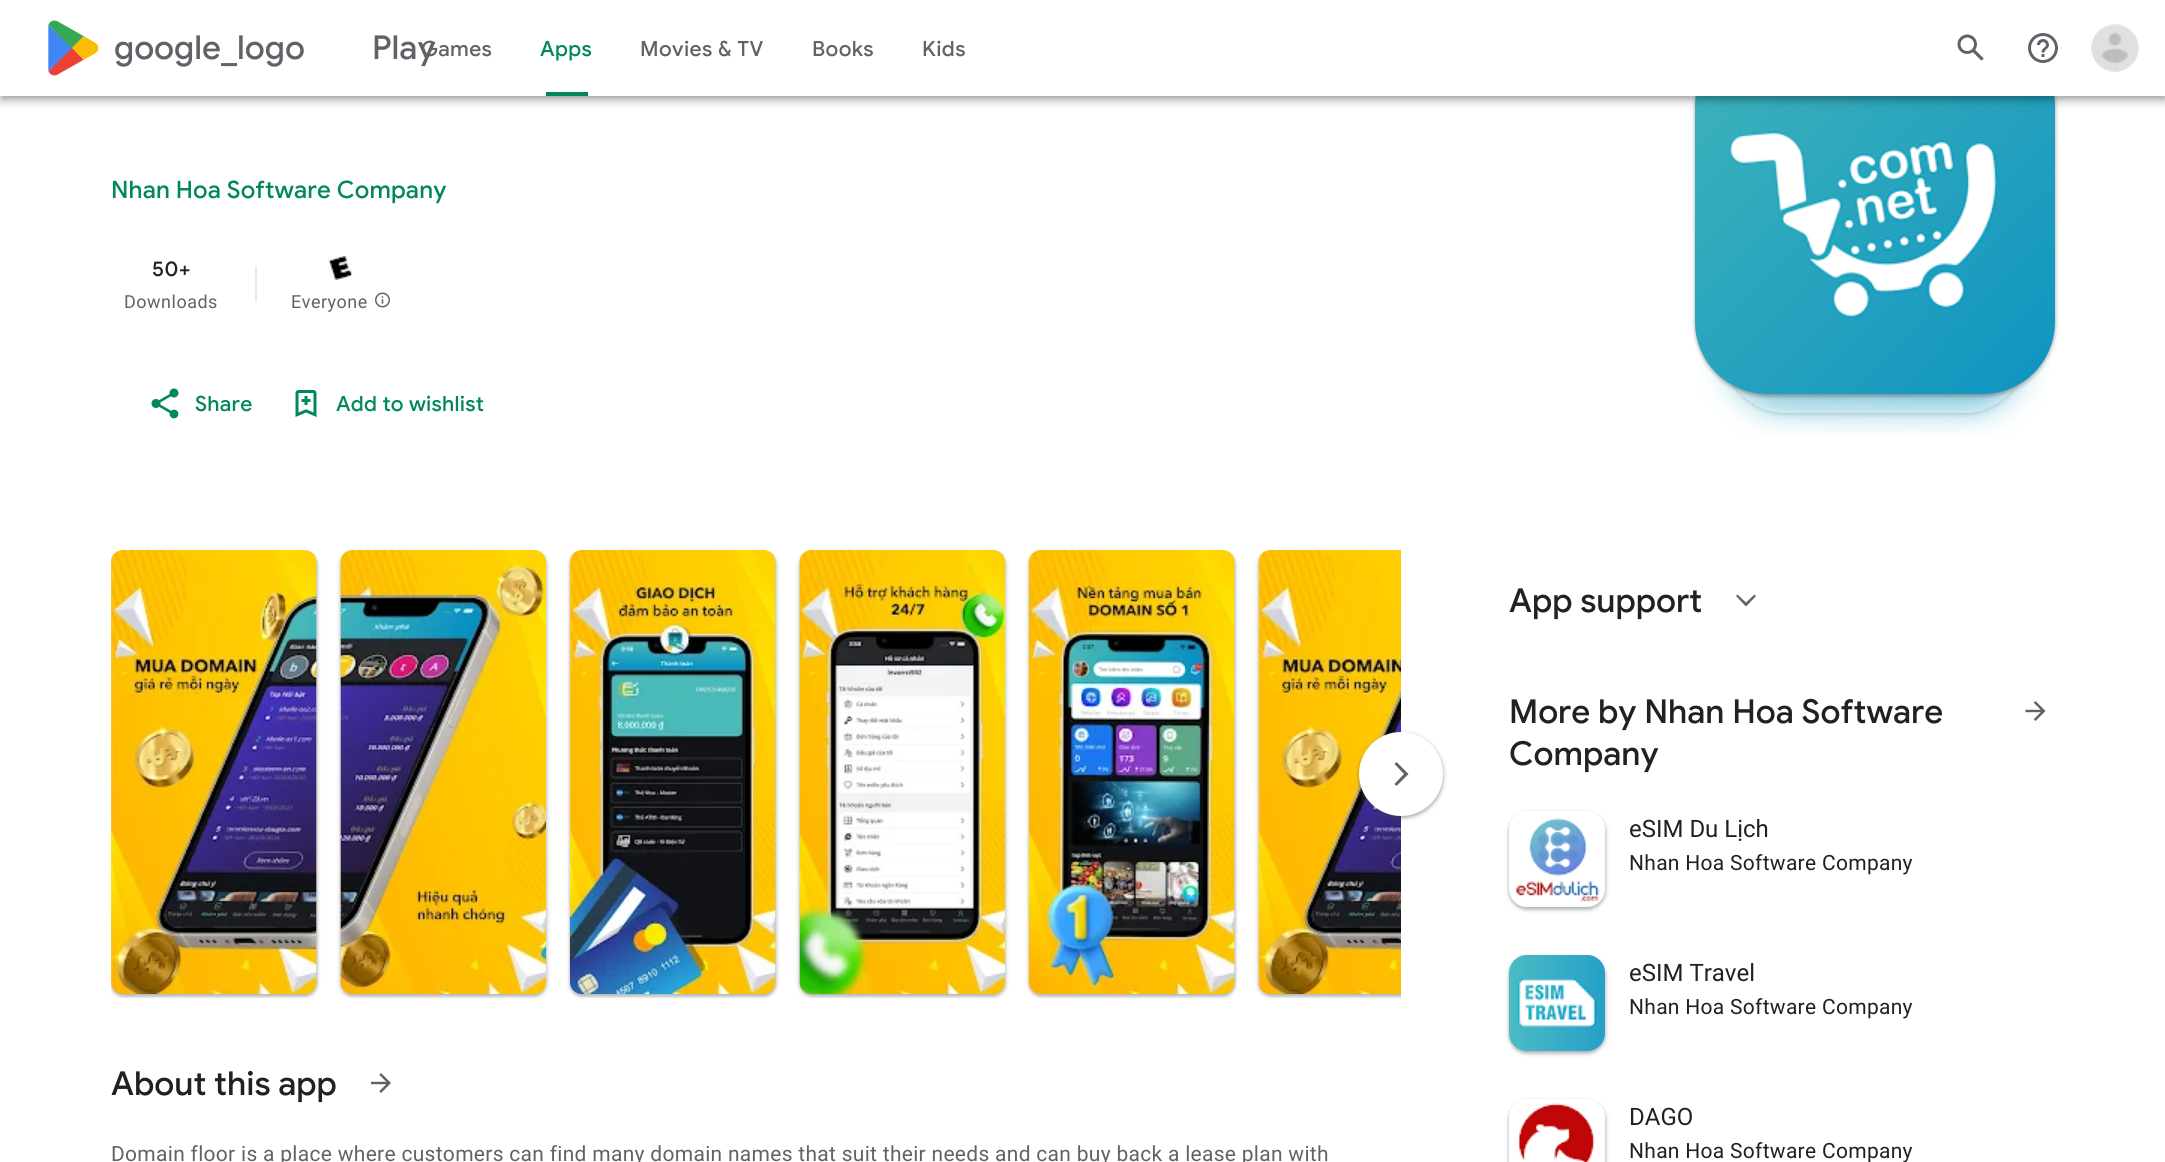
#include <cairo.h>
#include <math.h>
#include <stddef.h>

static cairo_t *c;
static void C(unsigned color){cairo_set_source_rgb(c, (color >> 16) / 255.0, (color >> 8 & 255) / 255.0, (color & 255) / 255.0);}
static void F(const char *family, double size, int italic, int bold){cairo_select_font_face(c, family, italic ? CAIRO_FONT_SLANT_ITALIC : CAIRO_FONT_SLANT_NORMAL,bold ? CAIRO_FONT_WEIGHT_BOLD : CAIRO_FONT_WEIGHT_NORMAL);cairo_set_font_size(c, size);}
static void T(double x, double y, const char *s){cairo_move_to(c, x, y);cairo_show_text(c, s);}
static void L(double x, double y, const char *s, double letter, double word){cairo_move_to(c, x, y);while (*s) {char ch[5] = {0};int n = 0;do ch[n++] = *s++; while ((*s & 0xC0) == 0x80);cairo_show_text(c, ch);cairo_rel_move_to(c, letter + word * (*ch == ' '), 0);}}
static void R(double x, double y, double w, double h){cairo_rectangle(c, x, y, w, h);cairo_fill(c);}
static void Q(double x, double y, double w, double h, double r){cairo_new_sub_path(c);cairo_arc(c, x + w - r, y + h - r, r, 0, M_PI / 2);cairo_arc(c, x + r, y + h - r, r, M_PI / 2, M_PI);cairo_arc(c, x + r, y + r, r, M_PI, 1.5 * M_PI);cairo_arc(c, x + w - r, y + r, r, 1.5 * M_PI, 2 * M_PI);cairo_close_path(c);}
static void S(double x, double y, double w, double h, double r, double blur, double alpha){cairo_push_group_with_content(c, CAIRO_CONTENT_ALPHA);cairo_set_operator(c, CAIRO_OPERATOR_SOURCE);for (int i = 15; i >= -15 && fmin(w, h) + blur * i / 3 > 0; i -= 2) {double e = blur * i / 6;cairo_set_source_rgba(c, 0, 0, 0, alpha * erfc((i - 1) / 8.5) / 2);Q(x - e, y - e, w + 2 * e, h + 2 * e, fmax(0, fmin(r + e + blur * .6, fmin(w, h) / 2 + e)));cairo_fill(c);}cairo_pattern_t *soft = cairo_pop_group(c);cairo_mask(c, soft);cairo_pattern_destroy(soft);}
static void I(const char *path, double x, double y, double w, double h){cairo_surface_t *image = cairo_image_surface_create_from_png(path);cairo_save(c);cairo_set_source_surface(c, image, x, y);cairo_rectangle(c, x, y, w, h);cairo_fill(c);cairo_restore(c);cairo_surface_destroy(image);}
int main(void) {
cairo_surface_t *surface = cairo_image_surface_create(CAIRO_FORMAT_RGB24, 2165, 1162);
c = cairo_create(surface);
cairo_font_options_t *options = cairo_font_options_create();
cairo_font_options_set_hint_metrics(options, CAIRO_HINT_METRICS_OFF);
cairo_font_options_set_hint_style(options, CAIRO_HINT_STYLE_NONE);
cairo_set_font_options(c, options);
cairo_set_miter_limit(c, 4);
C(0xffffff);
cairo_paint(c);
cairo_save(c);
cairo_set_fill_rule(c,CAIRO_FILL_RULE_EVEN_ODD);
cairo_new_path(c);
cairo_move_to(c,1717,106);
cairo_line_to(c,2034,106);
cairo_line_to(c,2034,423);
cairo_line_to(c,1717,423);
cairo_close_path(c);
cairo_move_to(c,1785,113);
cairo_line_to(c,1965,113);
cairo_curve_to(c,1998,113,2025,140,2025,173);
cairo_line_to(c,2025,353);
cairo_curve_to(c,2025,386,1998,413,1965,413);
cairo_line_to(c,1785,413);
cairo_curve_to(c,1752,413,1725,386,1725,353);
cairo_line_to(c,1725,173);
cairo_curve_to(c,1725,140,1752,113,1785,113);
cairo_close_path(c);
cairo_clip(c);
C(0x9ea0a1);
S(1724,113,303,303,62,2,.15);
cairo_restore(c);
cairo_save(c);
cairo_set_fill_rule(c,CAIRO_FILL_RULE_EVEN_ODD);
cairo_new_path(c);
cairo_move_to(c,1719,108);
cairo_line_to(c,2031,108);
cairo_line_to(c,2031,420);
cairo_line_to(c,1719,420);
cairo_close_path(c);
cairo_move_to(c,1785,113);
cairo_line_to(c,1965,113);
cairo_curve_to(c,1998,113,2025,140,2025,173);
cairo_line_to(c,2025,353);
cairo_curve_to(c,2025,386,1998,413,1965,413);
cairo_line_to(c,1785,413);
cairo_curve_to(c,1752,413,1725,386,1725,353);
cairo_line_to(c,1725,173);
cairo_curve_to(c,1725,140,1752,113,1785,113);
cairo_close_path(c);
cairo_clip(c);
C(0x9ea0a1);
S(1725,114,300,300,60,1.5,.3);
cairo_restore(c);
I("8.png",1701,350,348,86);
C(0x3c4043);
S(1694,35,363,363,74,2,.15);
S(1695,36,360,360,72,1.5,.3);
I("7.png",1695,96,360,298);
C(0x000000);
S(2,5,2163,93,0,3,.2);
S(0,2,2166,96,0,7.5,.12);
S(0,6,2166,96,0,4,.14);
C(0xffffff);
R(0,0,2165,96);
I("1.png",48,20,51,56);
F("Google Sans Medium",33,0,0);
C(0x5f6368);
L(114,59,"google_logo",0,82);
L(372,59,"Play",0,82);
F("Google Sans Medium",21,0,0);
L(421,56,"Games",.4,0);
C(0x01875f);
L(540,56,"Apps",.4,0);
R(546,92,42,4);
C(0x5f6368);
L(640,56,"Movies & TV",.4,0);
L(812,56,"Books",.4,0);
L(922,56,"Kids",.4,0);
I("2.png",1957,34,27,27);
I("3.png",2028,33,30,30);
I("4.png",2091,24,48,48);
F("Google Sans Medium",24,0,0);
C(0x01875f);
L(111,198,"Nhan Hoa Software Company",.15,0);
F("Google Sans Medium",21,0,0);
C(0x202124);
L(152,276,"50+",.4,0);
F("Roboto",18,0,0);
C(0x5f6368);
L(124,308,"Downloads",.5,0);
C(0xe8eaed);
R(255,266,2,36);
I("5.png",328,256,25,24);
C(0x5f6368);
L(291,308,"Everyone",.5,0);
I("6.png",375,292,15,16);
I("9.png",151,388,28,31);
F("Google Sans Medium",21,0,0);
C(0x01875f);
L(195,411,"Share",.25,0);
I("10.png",295,390,22,27);
L(336,411,"Add to wishlist",.25,0);
cairo_save(c);
cairo_rectangle(c,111,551,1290,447);
cairo_clip(c);
C(0x3c4043);
S(110,551,208,447,14,2,.15);
S(111,552,206,444,12,1.5,.3);
cairo_restore(c);
I("11.png",111,550,206,444);
cairo_save(c);
cairo_rectangle(c,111,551,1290,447);
cairo_clip(c);
C(0x3c4043);
S(339,551,209,447,14,2,.15);
cairo_restore(c);
C(0x3c4043);
S(341,552,205,444,12,1.5,.3);
I("12.png",340,550,206,444);
cairo_save(c);
cairo_rectangle(c,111,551,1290,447);
cairo_clip(c);
S(569,551,208,447,14,2,.15);
cairo_restore(c);
S(570,552,206,444,12,1.5,.3);
I("13.png",570,550,206,444);
cairo_save(c);
cairo_rectangle(c,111,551,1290,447);
cairo_clip(c);
S(798,551,209,447,14,2,.15);
cairo_restore(c);
S(800,552,205,444,12,1.5,.3);
I("14.png",799,550,206,444);
cairo_save(c);
cairo_rectangle(c,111,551,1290,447);
cairo_clip(c);
S(1028,551,208,447,14,2,.15);
cairo_restore(c);
S(1029,552,206,444,12,1.5,.3);
I("15.png",1029,550,206,444);
cairo_save(c);
cairo_rectangle(c,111,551,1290,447);
cairo_clip(c);
S(1257,551,209,447,14,2,.15);
S(1259,552,205,444,12,1.5,.3);
cairo_restore(c);
I("16.png",1258,550,143,444);
S(1358,732,87,87,43.5,2,.15);
S(1359,734,84,84,42,1.5,.3);
C(0xffffff);
cairo_arc(c,1401,774,42,0,2 * M_PI);
cairo_fill(c);
C(0x5f6368);
cairo_new_path(c);
cairo_move_to(c,1394.5,784);
cairo_line_to(c,1396.5,786);
cairo_line_to(c,1408.5,774);
cairo_line_to(c,1396.5,762);
cairo_line_to(c,1394.5,764);
cairo_line_to(c,1404,774);
cairo_close_path(c);
cairo_fill(c);
F("Google Sans Medium",33,0,0);
C(0x202124);
T(111,1095,"About this app");
I("17.png",371,1073,20,20);
F("Roboto",21,0,0);
C(0x5f6368);
L(111,1161,"Domain floor is a place where customers can find many domain names that suit their needs and can buy back a lease plan with",.3,0);
F("Google Sans Medium",33,0,0);
C(0x202124);
T(1509,612,"App support");
C(0x5f6368);
cairo_new_path(c);
cairo_move_to(c,1737.5,594.5);
cairo_line_to(c,1736,596);
cairo_line_to(c,1746,606.5);
cairo_line_to(c,1756,596);
cairo_line_to(c,1754.5,594.5);
cairo_line_to(c,1746,602.5);
cairo_close_path(c);
cairo_fill(c);
C(0x202124);
T(1509,723,"More by Nhan Hoa Software");
T(1509,765,"Company");
I("18.png",2025,701,21,20);
C(0x3c4043);
S(1508,812,99,99,20,2,.15);
S(1509,813,96,96,18,1.5,.3);
I("19.png",1509,811,96,96);
F("Roboto",24,0,0);
C(0x202124);
T(1629,837,"eSIM Du Lịch");
F("Roboto",21,0,0);
L(1629,870,"Nhan Hoa Software Company",.3,0);
C(0x3c4043);
S(1508,956,99,99,20,2,.15);
S(1509,957,96,96,18,1.5,.3);
I("20.png",1509,955,96,96);
F("Roboto",24,0,0);
C(0x202124);
T(1629,981,"eSIM Travel");
F("Roboto",21,0,0);
L(1629,1014,"Nhan Hoa Software Company",.3,0);
C(0x3c4043);
S(1508,1100,99,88,20,2,.15);
S(1509,1101,96,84,18,1.5,.3);
I("21.png",1509,1099,96,63);
F("Roboto",24,0,0);
C(0x202124);
T(1629,1125,"DAGO");
F("Roboto",21,0,0);
L(1629,1158,"Nhan Hoa Software Company",.3,0);
cairo_surface_write_to_png(surface, "o.png");
cairo_font_options_destroy(options);
cairo_destroy(c);
cairo_surface_destroy(surface);
return 0;
}
